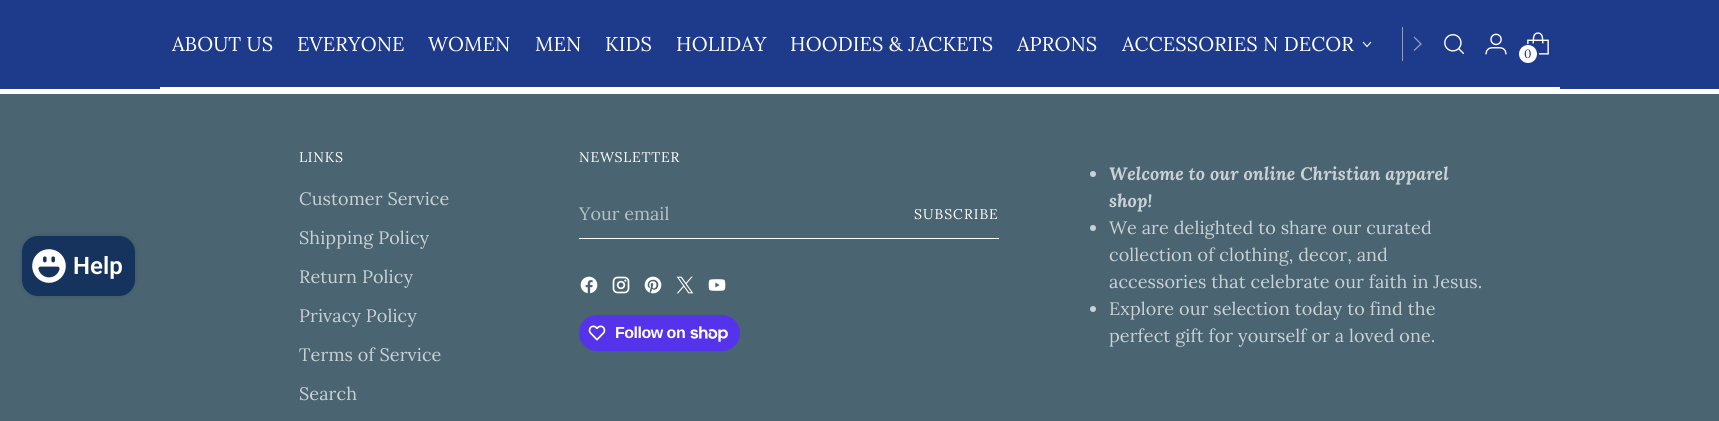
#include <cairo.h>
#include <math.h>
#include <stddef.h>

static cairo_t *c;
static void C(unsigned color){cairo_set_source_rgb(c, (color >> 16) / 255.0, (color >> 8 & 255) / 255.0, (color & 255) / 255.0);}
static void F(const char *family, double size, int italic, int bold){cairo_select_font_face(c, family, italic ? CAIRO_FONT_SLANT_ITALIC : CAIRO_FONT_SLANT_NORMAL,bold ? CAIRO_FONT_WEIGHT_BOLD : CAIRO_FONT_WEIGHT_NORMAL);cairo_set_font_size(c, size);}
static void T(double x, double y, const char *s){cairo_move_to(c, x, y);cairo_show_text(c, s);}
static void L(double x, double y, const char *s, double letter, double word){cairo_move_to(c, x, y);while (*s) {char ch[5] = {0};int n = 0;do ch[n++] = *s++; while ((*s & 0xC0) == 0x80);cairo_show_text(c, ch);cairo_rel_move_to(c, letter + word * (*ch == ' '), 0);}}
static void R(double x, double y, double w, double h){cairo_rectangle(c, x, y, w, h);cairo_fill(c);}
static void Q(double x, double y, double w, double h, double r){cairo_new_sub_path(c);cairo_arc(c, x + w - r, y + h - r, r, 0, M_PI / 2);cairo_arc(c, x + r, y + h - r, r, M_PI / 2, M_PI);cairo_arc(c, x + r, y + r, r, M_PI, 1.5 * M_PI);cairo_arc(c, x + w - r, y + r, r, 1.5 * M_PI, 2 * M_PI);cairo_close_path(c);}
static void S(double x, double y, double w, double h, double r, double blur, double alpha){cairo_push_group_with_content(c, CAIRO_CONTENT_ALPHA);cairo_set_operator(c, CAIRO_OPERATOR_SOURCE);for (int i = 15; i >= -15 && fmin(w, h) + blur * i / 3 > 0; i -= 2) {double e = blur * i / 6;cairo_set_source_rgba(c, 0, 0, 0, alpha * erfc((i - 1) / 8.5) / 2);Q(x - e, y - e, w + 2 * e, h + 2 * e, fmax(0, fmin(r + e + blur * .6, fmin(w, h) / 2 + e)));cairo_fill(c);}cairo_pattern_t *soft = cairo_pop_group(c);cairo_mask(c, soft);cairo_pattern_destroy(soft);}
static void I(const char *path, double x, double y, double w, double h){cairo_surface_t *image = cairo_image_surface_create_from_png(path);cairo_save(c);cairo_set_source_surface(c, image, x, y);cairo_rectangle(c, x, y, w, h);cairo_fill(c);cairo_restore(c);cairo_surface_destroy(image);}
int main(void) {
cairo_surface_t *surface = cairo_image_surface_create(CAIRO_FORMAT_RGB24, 1719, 421);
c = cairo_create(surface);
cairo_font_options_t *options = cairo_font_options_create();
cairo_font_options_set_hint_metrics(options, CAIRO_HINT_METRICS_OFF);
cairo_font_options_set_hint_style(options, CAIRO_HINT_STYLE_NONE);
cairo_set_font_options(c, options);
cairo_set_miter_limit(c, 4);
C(0xffffff);
cairo_paint(c);
C(0x4a6472);
R(0,94,1719,327);
C(0x000000);
S(22,236,113,60,16,2.5,.15);
C(0x16335d);
Q(22,236,113,60,16);
cairo_fill(c);
I("1.png",32,249,34,34);
F("Roboto SemiBold",24,0,0);
C(0xffffff);
T(73,274,"Help");
C(0x1e3a8a);
R(0,0,1719,89);
C(0xffffff);
R(160,87,1400,2);
F("Lora",20,0,0);
L(172,51,"ABOUT US",.1,0);
L(297,51,"EVERYONE",.1,0);
L(428,51,"WOMEN",.1,0);
L(535,51,"MEN",.1,0);
L(605,51,"KIDS",.1,0);
L(676,51,"HOLIDAY",.1,0);
L(790,51,"HOODIES & JACKETS",.1,0);
L(1017,51,"APRONS",.1,0);
L(1122,51,"ACCESSORIES N DECOR",.1,0);
cairo_new_path(c);
cairo_move_to(c,1363,42);
cairo_line_to(c,1367,46.5);
cairo_line_to(c,1371,42);
cairo_set_line_width(c,1.1);
cairo_stroke(c);
C(0x8f9dc5);
R(1402,27,1,34);
cairo_new_path(c);
cairo_move_to(c,1414,50.5);
cairo_line_to(c,1421,44);
cairo_line_to(c,1414,37);
cairo_set_line_width(c,1.3);
cairo_stroke(c);
I("2.png",1444,34,21,21);
I("3.png",1485,33,22,22);
I("4.png",1527,32,22,23);
cairo_arc(c,1528.5,54.5,9.5,0,2 * M_PI);
C(0x1e3a8a);
cairo_set_line_width(c,2);
cairo_stroke(c);
C(0xffffff);
cairo_arc(c,1528,54,9,0,2 * M_PI);
cairo_fill(c);
F("Lora",12,0,0);
C(0x1e3a8a);
L(1524,58,"0",.1,0);
F("Lora",14,0,0);
C(0xffffff);
L(299,162,"LINKS",.75,0);
F("Lora",18,0,0);
C(0xc9d1d5);
L(299,205,"Customer Service",.1,0);
L(299,244,"Shipping Policy",.1,0);
L(299,283,"Return Policy",.1,0);
L(299,322,"Privacy Policy",.1,0);
L(299,361,"Terms of Service",.1,0);
L(299,400,"Search",.1,0);
F("Lora",14,0,0);
C(0xffffff);
L(579,162,"NEWSLETTER",.75,0);
R(579,238,420,1);
F("Lora",18,0,0);
C(0xb7c1c7);
T(579,220,"Your email");
F("Lora",14,0,0);
C(0xffffff);
L(914,219,"SUBSCRIBE",1,0);
I("5.png",580,276,18,18);
I("6.png",612,276,18,18);
I("7.png",644,276,18,18);
I("8.png",676,276,18,18);
I("9.png",708,279,18,12);
C(0x5433eb);
Q(579,315,161,36,18);
cairo_fill(c);
I("10.png",588,325,18,16);
F("Liberation Sans",16,0,1);
C(0xffffff);
L(615,338,"Follow on",-.5,0);
I("11.png",690,326,38,16);
C(0xc9d1d5);
cairo_arc(c,1093,174,3,0,2 * M_PI);
cairo_fill(c);
F("Lora",18,1,1);
L(1109,180,"Welcome to our online Christian apparel",.1,0);
L(1109,207,"shop!",.1,0);
cairo_new_path(c);
cairo_arc(c,1093,228,3,0,2 * M_PI);
cairo_fill(c);
F("Lora",18,0,0);
L(1109,234,"We are delighted to share our curated",.1,0);
L(1109,261,"collection of clothing, decor, and",.1,0);
L(1109,288,"accessories that celebrate our faith in Jesus.",.1,0);
cairo_new_path(c);
cairo_arc(c,1093,309,3,0,2 * M_PI);
cairo_fill(c);
L(1109,315,"Explore our selection today to find the",.1,0);
L(1109,342,"perfect gift for yourself or a loved one.",.1,0);
cairo_surface_write_to_png(surface, "o.png");
cairo_font_options_destroy(options);
cairo_destroy(c);
cairo_surface_destroy(surface);
return 0;
}
